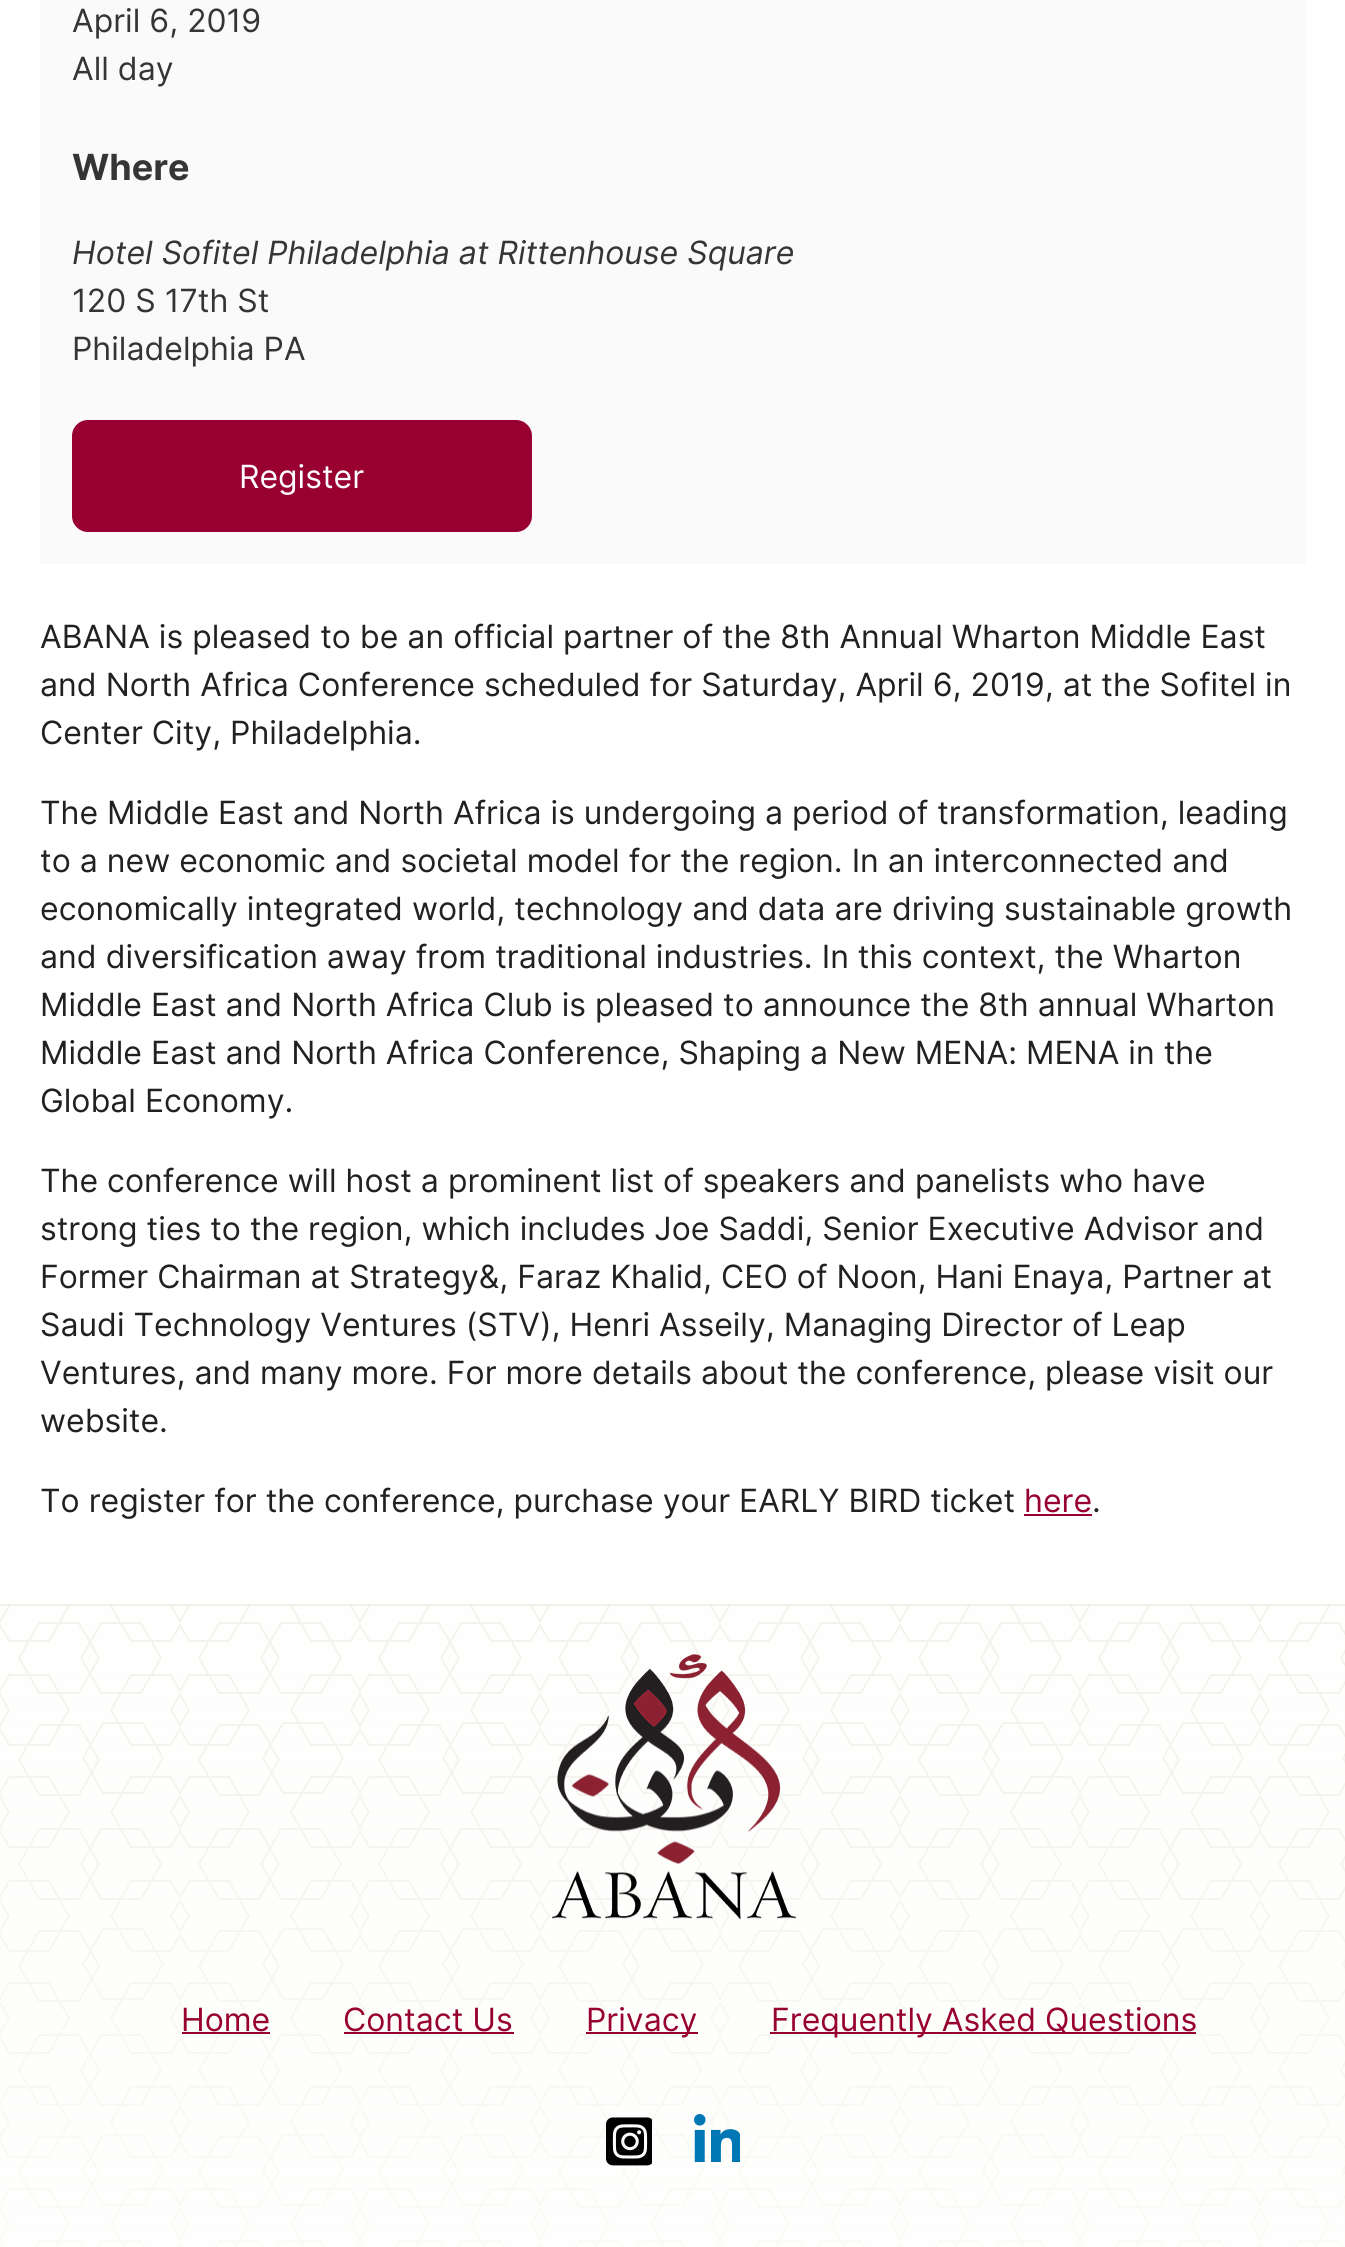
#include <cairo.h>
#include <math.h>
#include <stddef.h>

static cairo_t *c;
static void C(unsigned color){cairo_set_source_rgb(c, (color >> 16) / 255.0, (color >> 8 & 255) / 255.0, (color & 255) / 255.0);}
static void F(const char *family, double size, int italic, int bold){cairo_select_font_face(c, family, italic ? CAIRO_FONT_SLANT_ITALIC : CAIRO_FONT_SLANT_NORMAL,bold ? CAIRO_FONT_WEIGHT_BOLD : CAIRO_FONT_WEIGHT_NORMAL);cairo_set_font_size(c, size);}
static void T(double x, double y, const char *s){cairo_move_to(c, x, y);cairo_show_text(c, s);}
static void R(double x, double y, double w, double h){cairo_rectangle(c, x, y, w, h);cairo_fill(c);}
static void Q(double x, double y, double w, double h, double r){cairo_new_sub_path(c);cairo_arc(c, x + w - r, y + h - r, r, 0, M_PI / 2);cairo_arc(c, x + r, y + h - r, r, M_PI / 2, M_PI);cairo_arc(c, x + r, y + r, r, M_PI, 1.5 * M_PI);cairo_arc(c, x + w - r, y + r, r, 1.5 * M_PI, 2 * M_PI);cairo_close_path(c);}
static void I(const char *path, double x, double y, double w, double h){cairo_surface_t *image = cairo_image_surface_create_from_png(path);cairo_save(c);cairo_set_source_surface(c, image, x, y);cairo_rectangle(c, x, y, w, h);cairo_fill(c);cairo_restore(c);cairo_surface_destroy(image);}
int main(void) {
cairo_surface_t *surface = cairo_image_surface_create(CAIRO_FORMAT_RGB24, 1345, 2247);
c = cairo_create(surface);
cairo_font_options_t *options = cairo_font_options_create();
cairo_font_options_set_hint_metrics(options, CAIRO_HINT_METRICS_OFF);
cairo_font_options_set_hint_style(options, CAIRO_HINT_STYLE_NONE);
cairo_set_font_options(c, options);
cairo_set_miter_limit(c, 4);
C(0xffffff);
cairo_paint(c);
C(0xfafafa);
R(40,0,1266,564);
F("Inter",32,0,0);
C(0x353535);
T(72,32,"April 6, 2019");
T(72,80,"All day");
F("Inter",36,0,1);
T(72,180,"Where");
F("Inter",32,1,0);
T(72,264,"Hotel Sofitel Philadelphia at Rittenhouse Square");
F("Inter",32,0,0);
T(72,312,"120 S 17th St");
T(72,360,"Philadelphia PA");
C(0x970031);
Q(72,420,460,112,16);
cairo_fill(c);
C(0xffffff);
T(239,488,"Register");
C(0x212121);
T(40,648,"ABANA is pleased to be an official partner of the 8th Annual Wharton Middle East");
T(40,696,"and North Africa Conference scheduled for Saturday, April 6, 2019, at the Sofitel in");
T(40,744,"Center City, Philadelphia.");
T(40,824,"The Middle East and North Africa is undergoing a period of transformation, leading");
T(40,872,"to a new economic and societal model for the region. In an interconnected and");
T(40,920,"economically integrated world, technology and data are driving sustainable growth");
T(40,968,"and diversification away from traditional industries. In this context, the Wharton");
T(40,1016,"Middle East and North Africa Club is pleased to announce the 8th annual Wharton");
T(40,1064,"Middle East and North Africa Conference, Shaping a New MENA: MENA in the");
T(40,1112,"Global Economy.");
T(40,1192,"The conference will host a prominent list of speakers and panelists who have");
T(40,1240,"strong ties to the region, which includes Joe Saddi, Senior Executive Advisor and");
T(40,1288,"Former Chairman at Strategy&, Faraz Khalid, CEO of Noon, Hani Enaya, Partner at");
T(40,1336,"Saudi Technology Ventures (STV), Henri Asseily, Managing Director of Leap");
T(40,1384,"Ventures, and many more. For more details about the conference, please visit our");
T(40,1432,"website.");
T(40,1512,"To register for the conference, purchase your EARLY BIRD ticket");
C(0x970031);
T(1024,1512,"here");
R(1024,1514,68,2);
C(0x212121);
T(1092,1512,".");
I("1.png",0,1606,1345,641);
C(0xf1f0e9);
R(0,1604,1345,2);
I("2.png",552,1654,244,266);
C(0x970031);
T(181,2031,"Home");
R(182,2032,88,2);
T(343,2031,"Contact Us");
R(344,2032,170,2);
R(586,2032,112,2);
T(586,2031,"Privacy");
R(770,2032,426,2);
T(771,2031,"Frequently Asked Questions");
I("3.png",606,2117,46,49);
I("4.png",694,2114,46,48);
cairo_surface_write_to_png(surface, "o.png");
cairo_font_options_destroy(options);
cairo_destroy(c);
cairo_surface_destroy(surface);
return 0;
}
